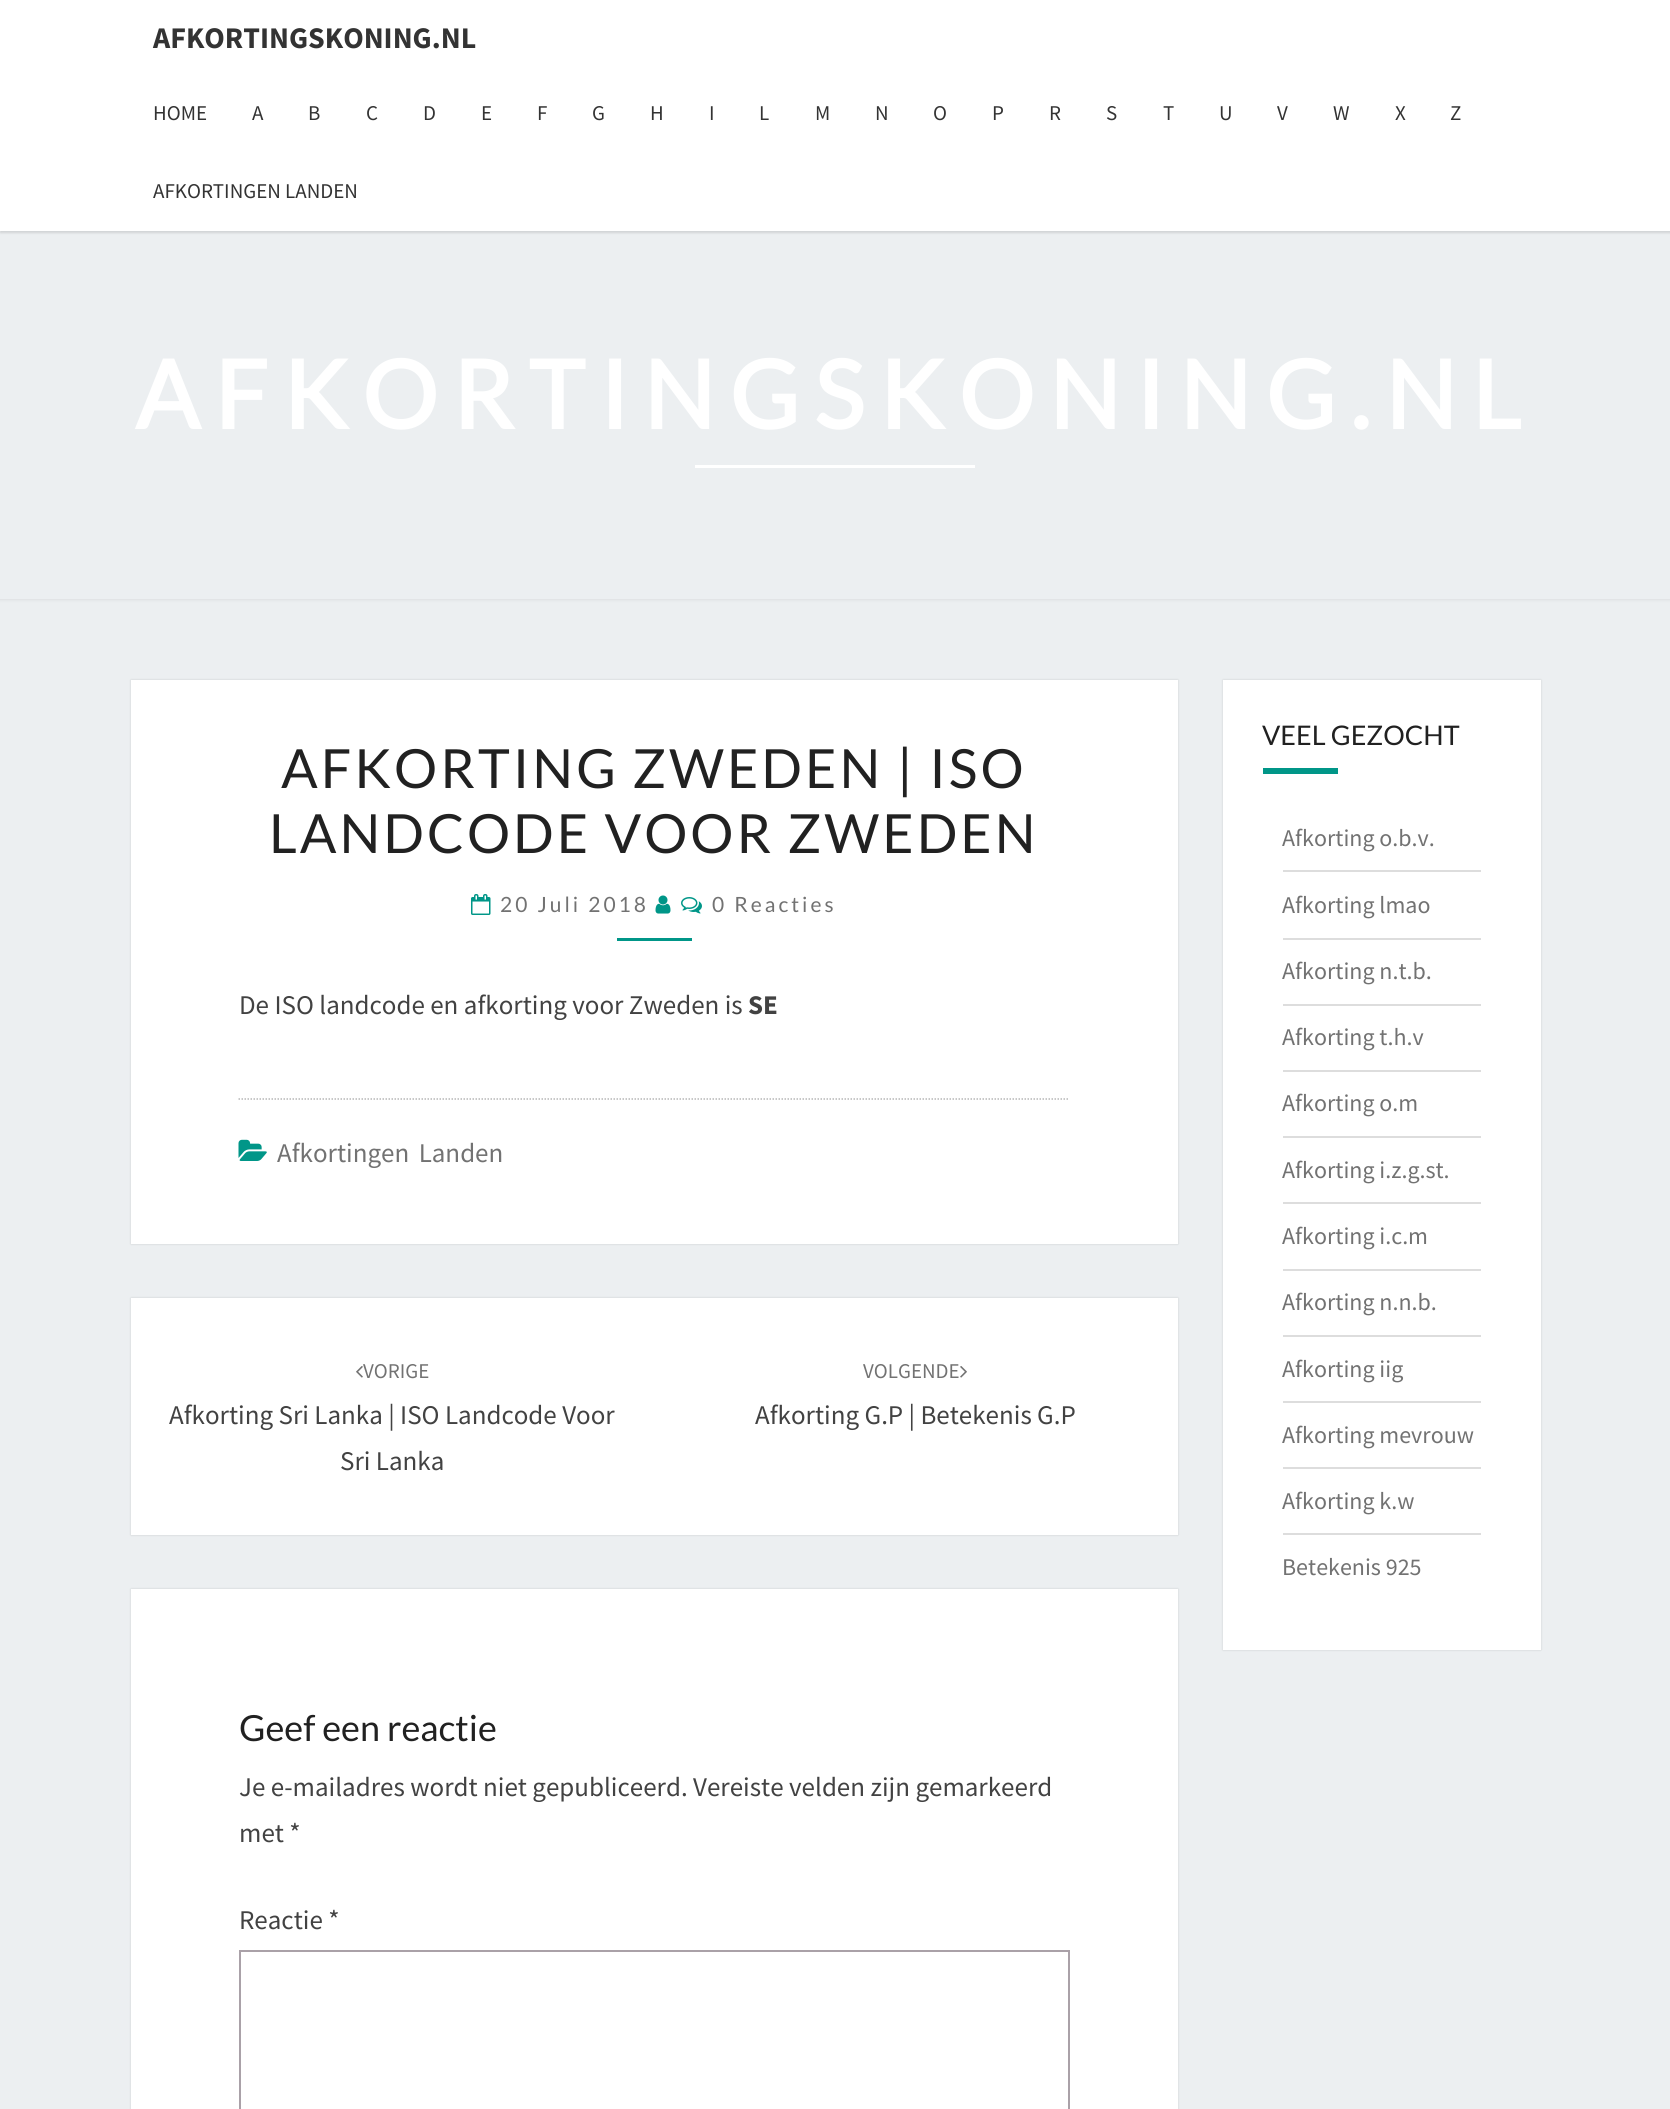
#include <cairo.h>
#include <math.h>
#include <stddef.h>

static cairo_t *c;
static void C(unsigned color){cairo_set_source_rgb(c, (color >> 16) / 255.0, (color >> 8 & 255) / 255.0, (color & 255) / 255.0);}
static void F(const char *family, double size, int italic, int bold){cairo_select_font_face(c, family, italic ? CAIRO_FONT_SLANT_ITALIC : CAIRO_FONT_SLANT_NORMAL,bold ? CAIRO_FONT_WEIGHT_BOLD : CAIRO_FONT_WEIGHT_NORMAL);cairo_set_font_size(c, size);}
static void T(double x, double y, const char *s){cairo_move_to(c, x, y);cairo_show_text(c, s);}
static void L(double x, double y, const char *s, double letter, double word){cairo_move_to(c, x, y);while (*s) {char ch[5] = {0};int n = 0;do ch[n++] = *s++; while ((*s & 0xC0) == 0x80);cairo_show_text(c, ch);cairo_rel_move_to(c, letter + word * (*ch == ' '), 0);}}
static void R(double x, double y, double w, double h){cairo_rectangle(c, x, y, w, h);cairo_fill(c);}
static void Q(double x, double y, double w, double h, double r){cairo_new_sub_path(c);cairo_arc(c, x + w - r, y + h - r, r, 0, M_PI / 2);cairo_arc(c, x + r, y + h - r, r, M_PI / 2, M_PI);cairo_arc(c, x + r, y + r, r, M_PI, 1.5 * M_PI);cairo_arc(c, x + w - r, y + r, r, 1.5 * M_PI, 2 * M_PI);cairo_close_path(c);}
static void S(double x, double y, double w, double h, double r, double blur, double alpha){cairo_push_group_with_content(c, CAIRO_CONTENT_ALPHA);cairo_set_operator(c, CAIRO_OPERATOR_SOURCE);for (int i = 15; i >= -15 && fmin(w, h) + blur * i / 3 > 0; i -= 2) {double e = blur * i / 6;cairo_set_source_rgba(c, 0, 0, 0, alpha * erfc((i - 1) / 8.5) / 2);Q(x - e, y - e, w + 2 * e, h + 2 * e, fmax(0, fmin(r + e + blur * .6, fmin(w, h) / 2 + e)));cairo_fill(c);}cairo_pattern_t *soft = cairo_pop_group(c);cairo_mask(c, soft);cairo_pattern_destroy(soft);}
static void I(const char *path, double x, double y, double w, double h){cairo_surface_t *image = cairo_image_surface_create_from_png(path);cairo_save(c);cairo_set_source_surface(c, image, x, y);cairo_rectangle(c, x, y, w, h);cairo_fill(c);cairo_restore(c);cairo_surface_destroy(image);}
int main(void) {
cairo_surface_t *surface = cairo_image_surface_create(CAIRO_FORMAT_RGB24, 1670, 2109);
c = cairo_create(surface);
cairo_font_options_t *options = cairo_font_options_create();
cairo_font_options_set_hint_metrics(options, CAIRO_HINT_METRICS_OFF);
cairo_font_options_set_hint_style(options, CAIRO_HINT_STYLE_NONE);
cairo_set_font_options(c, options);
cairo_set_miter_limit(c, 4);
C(0xeceff1);
cairo_paint(c);
C(0x646464);
S(0,2,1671,231,0,1,.2);
cairo_save(c);
cairo_set_fill_rule(c,CAIRO_FILL_RULE_EVEN_ODD);
cairo_new_path(c);
cairo_move_to(c,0,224);
cairo_line_to(c,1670,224);
cairo_line_to(c,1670,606);
cairo_line_to(c,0,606);
cairo_close_path(c);
cairo_move_to(c,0,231);
cairo_line_to(c,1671,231);
cairo_line_to(c,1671,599);
cairo_line_to(c,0,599);
cairo_close_path(c);
cairo_clip(c);
C(0xb6b6b6);
S(-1,230,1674,370,0,1.5,.3);
cairo_restore(c);
C(0xffffff);
R(0,0,1670,231);
F("Source Sans Pro",30,0,1);
C(0x333333);
T(153,48,"AFKORTINGSKONING.NL");
F("Source Sans Pro",21,0,0);
T(153,120,"HOME");
T(252,120,"A");
T(308,120,"B");
T(366,120,"C");
T(423,120,"D");
T(481,120,"E");
T(537,120,"F");
T(592,120,"G");
T(650,120,"H");
T(709,120,"I");
T(759,120,"L");
T(815,120,"M");
T(875,120,"N");
T(933,120,"O");
T(992,120,"P");
T(1049,120,"R");
T(1106,120,"S");
T(1163,120,"T");
T(1219,120,"U");
T(1277,120,"V");
T(1333,120,"W");
T(1395,120,"X");
T(1450,120,"Z");
T(153,198,"AFKORTINGEN LANDEN");
F("Lato",94.5,0,1);
C(0xffffff);
L(135,429,"AFKORTINGSKONING.NL",15,0);
R(695,465,280,3);
C(0x000000);
S(131,680,1047,564,0,1,.15);
C(0xffffff);
R(131,680,1047,564);
F("Lato",54,0,0);
C(0x212121);
L(281,788,"AFKORTING ZWEDEN | ISO",3,0);
L(269,853,"LANDCODE VOOR ZWEDEN",3,0);
I("1.png",471,894,20,21);
F("Lato",21,0,0);
C(0x727272);
L(500,912,"20 Juli 2018",3,0);
I("2.png",655,895,16,19);
I("3.png",681,897,21,17);
L(712,912,"0 Reacties",3,0);
C(0x009688);
R(617,938,75,3);
F("Source Sans Pro",27,0,0);
C(0x424242);
T(239,1014,"De ISO landcode en afkorting voor Zweden is");
F("Source Sans Pro",27,0,1);
T(748,1014,"SE");
cairo_new_path(c);
cairo_move_to(c,238.5,1099);
cairo_line_to(c,1069.5,1099);
C(0xb6b6b6);
cairo_set_line_width(c,1.5);
cairo_set_dash(c,(double[]){1.5,1.5},2,0);
cairo_stroke(c);
I("4.png",238,1139,29,22);
F("Source Sans Pro",27,0,0);
C(0x727272);
L(277,1162,"Afkortingen Landen",0,4);
C(0x000000);
S(131,1298,1047,237,0,1,.15);
C(0xffffff);
R(131,1298,1047,237);
I("5.png",356,1366,7,12);
F("Source Sans Pro",21,0,0);
C(0x727272);
T(363,1378,"VORIGE");
F("Source Sans Pro",27,0,0);
C(0x424242);
T(169,1424,"Afkorting Sri Lanka | ISO Landcode Voor");
T(340,1470,"Sri Lanka");
F("Source Sans Pro",21,0,0);
C(0x727272);
T(863,1378,"VOLGENDE");
I("6.png",960,1366,7,12);
F("Source Sans Pro",27,0,0);
C(0x424242);
T(755,1424,"Afkorting G.P | Betekenis G.P");
C(0x000000);
S(131,1589,1047,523,0,1,.15);
C(0xffffff);
R(131,1589,1047,520);
F("Lato",36,0,0);
C(0x212121);
T(239,1741,"Geef een reactie");
F("Source Sans Pro",27,0,0);
C(0x424242);
T(239,1796,"Je e-mailadres wordt niet gepubliceerd. Vereiste velden zijn gemarkeerd");
T(239,1842,"met *");
T(239,1929,"Reactie *");
cairo_rectangle(c,240,1951,829,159);
C(0xaaa1a8);
cairo_set_line_width(c,2);
cairo_set_dash(c,NULL,0,0);
cairo_stroke(c);
C(0x000000);
S(1223,680,318,970,0,1,.15);
C(0xffffff);
R(1223,680,318,970);
F("Lato",27,0,0);
C(0x212121);
T(1262,745,"VEEL GEZOCHT");
C(0x009688);
R(1263,768,75,6);
C(0xdddddd);
R(1283,870,198,2);
F("Source Sans Pro",24,0,0);
C(0x727272);
T(1282,846,"Afkorting o.b.v.");
C(0xdddddd);
R(1283,938,198,2);
C(0x727272);
T(1282,913,"Afkorting lmao");
C(0xdddddd);
R(1283,1004,198,2);
C(0x727272);
T(1282,979,"Afkorting n.t.b.");
C(0xdddddd);
R(1283,1070,198,2);
C(0x727272);
T(1282,1045,"Afkorting t.h.v");
C(0xdddddd);
R(1283,1136,198,2);
C(0x727272);
T(1282,1111,"Afkorting o.m");
C(0xdddddd);
R(1283,1202,198,2);
C(0x727272);
T(1282,1178,"Afkorting i.z.g.st.");
C(0xdddddd);
R(1283,1269,198,2);
C(0x727272);
T(1282,1244,"Afkorting i.c.m");
C(0xdddddd);
R(1283,1335,198,2);
C(0x727272);
T(1282,1310,"Afkorting n.n.b.");
C(0xdddddd);
R(1283,1401,198,2);
C(0x727272);
T(1282,1377,"Afkorting iig");
C(0xdddddd);
R(1283,1467,198,2);
C(0x727272);
T(1282,1443,"Afkorting mevrouw");
C(0xdddddd);
R(1283,1533,198,2);
C(0x727272);
T(1282,1509,"Afkorting k.w");
T(1282,1575,"Betekenis 925");
cairo_surface_write_to_png(surface, "o.png");
cairo_font_options_destroy(options);
cairo_destroy(c);
cairo_surface_destroy(surface);
return 0;
}
